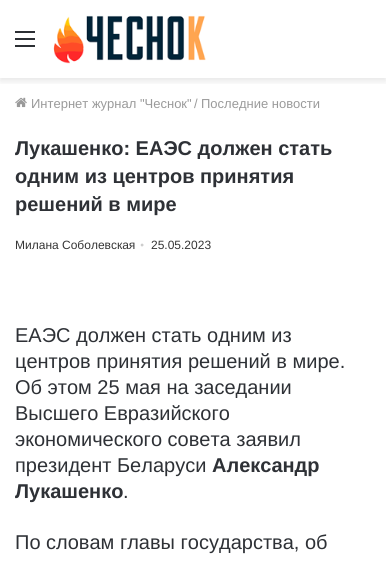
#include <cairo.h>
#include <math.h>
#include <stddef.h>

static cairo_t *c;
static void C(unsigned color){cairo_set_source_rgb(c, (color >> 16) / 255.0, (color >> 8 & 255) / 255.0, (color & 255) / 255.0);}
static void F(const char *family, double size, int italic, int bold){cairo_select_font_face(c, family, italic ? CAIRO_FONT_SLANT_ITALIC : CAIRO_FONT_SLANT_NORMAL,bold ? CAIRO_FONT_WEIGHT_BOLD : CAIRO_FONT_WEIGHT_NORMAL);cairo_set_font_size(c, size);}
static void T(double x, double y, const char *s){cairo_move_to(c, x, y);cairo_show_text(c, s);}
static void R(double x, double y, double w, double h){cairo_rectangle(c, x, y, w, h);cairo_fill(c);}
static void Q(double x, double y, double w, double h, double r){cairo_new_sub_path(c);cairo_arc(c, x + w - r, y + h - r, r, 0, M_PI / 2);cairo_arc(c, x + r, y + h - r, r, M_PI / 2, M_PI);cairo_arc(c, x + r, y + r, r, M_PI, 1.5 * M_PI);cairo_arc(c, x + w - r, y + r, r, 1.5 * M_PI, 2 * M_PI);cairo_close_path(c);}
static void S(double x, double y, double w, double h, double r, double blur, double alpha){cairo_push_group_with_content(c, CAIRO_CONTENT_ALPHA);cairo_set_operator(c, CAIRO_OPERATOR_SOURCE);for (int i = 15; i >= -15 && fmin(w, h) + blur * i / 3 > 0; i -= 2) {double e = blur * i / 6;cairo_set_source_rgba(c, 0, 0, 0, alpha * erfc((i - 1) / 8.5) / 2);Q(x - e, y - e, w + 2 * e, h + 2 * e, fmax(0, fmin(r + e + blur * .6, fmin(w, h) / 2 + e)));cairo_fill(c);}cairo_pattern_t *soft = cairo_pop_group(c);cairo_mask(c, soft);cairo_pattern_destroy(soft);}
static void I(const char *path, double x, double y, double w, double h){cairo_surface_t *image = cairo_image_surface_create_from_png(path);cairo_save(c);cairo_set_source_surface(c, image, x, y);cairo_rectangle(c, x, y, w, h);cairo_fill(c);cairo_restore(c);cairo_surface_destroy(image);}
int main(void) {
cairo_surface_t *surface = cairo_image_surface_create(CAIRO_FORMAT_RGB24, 386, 570);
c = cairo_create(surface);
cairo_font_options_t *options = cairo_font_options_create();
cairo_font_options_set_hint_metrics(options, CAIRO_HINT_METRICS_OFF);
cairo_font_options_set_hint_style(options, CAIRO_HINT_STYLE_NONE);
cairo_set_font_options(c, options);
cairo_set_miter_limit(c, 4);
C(0xffffff);
cairo_paint(c);
cairo_save(c);
cairo_rectangle(c,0,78,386,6);
cairo_clip(c);
C(0x000000);
S(0,3,386,78,0,3.5,.1);
cairo_restore(c);
C(0x2c2f34);
R(15,38,20,2);
R(15,31,20,2);
R(15,45,20,2);
I("1.png",53,15,153,49);
I("2.png",15,97,12,11);
F("Liberation Sans",13,0,0);
C(0x9a9a9a);
T(31,108,"Интернет журнал \"Чеснок\"");
T(194,108,"/");
T(201,108,"Последние новости");
F("Liberation Sans",20,0,1);
C(0x2e3136);
T(15,155,"Лукашенко: ЕАЭС должен стать");
T(15,183,"одним из центров принятия");
T(15,211,"решений в мире");
F("Liberation Sans",12,0,0);
C(0x353535);
T(15,249,"Милана Соболевская");
F("Liberation Serif",12,0,0);
C(0xcdcdcd);
T(140,249,"•");
F("Liberation Sans",12,0,0);
C(0x353535);
T(151,249,"25.05.2023");
F("Liberation Sans",20,0,0);
C(0x2e3136);
T(15,342,"ЕАЭС должен стать одним из");
T(15,368,"центров принятия решений в мире.");
T(15,394,"Об этом 25 мая на заседании");
T(15,420,"Высшего Евразийского");
T(15,446,"экономического совета заявил");
T(15,472,"президент Беларуси");
F("Liberation Sans",20,0,1);
T(212,472,"Александр");
T(15,498,"Лукашенко");
F("Liberation Sans",20,0,0);
T(123,498,".");
T(15,549,"По словам главы государства, об");
cairo_surface_write_to_png(surface, "o.png");
cairo_font_options_destroy(options);
cairo_destroy(c);
cairo_surface_destroy(surface);
return 0;
}
